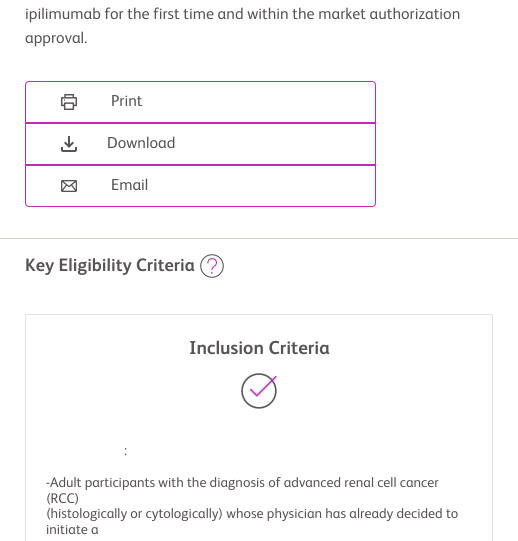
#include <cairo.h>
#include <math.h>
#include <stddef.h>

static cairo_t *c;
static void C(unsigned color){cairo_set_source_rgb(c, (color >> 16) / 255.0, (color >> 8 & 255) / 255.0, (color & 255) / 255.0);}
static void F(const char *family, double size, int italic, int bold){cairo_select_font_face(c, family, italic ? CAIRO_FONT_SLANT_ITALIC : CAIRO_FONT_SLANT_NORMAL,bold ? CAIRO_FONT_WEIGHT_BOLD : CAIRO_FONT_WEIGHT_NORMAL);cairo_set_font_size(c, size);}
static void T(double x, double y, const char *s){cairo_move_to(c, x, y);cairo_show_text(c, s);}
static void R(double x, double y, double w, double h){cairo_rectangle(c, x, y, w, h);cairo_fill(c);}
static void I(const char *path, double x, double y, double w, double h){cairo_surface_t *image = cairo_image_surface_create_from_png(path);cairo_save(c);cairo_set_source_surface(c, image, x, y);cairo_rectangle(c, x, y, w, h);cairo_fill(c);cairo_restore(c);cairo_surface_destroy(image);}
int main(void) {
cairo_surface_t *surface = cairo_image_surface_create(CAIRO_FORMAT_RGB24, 518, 541);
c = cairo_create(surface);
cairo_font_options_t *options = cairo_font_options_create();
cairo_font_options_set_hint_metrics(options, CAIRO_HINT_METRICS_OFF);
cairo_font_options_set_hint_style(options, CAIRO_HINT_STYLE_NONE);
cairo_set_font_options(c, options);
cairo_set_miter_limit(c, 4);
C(0xffffff);
cairo_paint(c);
C(0xd3cec0);
R(0,238,518,1);
F("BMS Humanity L",16,0,0);
C(0x595454);
T(25,19,"ipilimumab for the first time and within the market authorization");
T(25,43,"approval.");
cairo_new_path(c);
cairo_move_to(c,29,81.5);
cairo_line_to(c,372,81.5);
cairo_curve_to(c,374,81.5,375.5,83,375.5,85);
cairo_line_to(c,375.5,122.5);
cairo_line_to(c,25.5,122.5);
cairo_line_to(c,25.5,85);
cairo_curve_to(c,25.5,83,27,81.5,29,81.5);
cairo_close_path(c);
C(0xbe2bbb);
cairo_set_line_width(c,1);
cairo_stroke(c);
I("1.png",61,94,16,16);
C(0x595454);
T(111,106,"Print");
cairo_rectangle(c,25.5,123.5,350,41);
C(0xbe2bbb);
cairo_stroke(c);
I("2.png",61,136,16,16);
C(0x595454);
T(107,148,"Download");
cairo_new_path(c);
cairo_move_to(c,25.5,165.5);
cairo_line_to(c,375.5,165.5);
cairo_line_to(c,375.5,203);
cairo_curve_to(c,375.5,205,374,206.5,372,206.5);
cairo_line_to(c,29,206.5);
cairo_curve_to(c,27,206.5,25.5,205,25.5,203);
cairo_close_path(c);
C(0xbe2bbb);
cairo_stroke(c);
I("3.png",61,180,16,12);
C(0x595454);
T(111,190,"Email");
F("BMS Humanity L",18,0,1);
T(25,271,"Key Eligibility Criteria");
I("4.png",200,254,24,24);
cairo_rectangle(c,25.5,314.5,467,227);
C(0xe2e2e2);
cairo_stroke(c);
F("BMS Humanity L",18.75,0,1);
C(0x595454);
T(189,354,"Inclusion Criteria");
I("5.png",241,373,36,36);
F("BMS Humanity L",14,0,0);
T(124,455,":");
T(46,487,"-Adult participants with the diagnosis of advanced renal cell cancer");
T(46,503,"(RCC)");
T(46,518,"(histologically or cytologically) whose physician has already decided to");
T(46,534,"initiate a");
cairo_surface_write_to_png(surface, "o.png");
cairo_font_options_destroy(options);
cairo_destroy(c);
cairo_surface_destroy(surface);
return 0;
}
